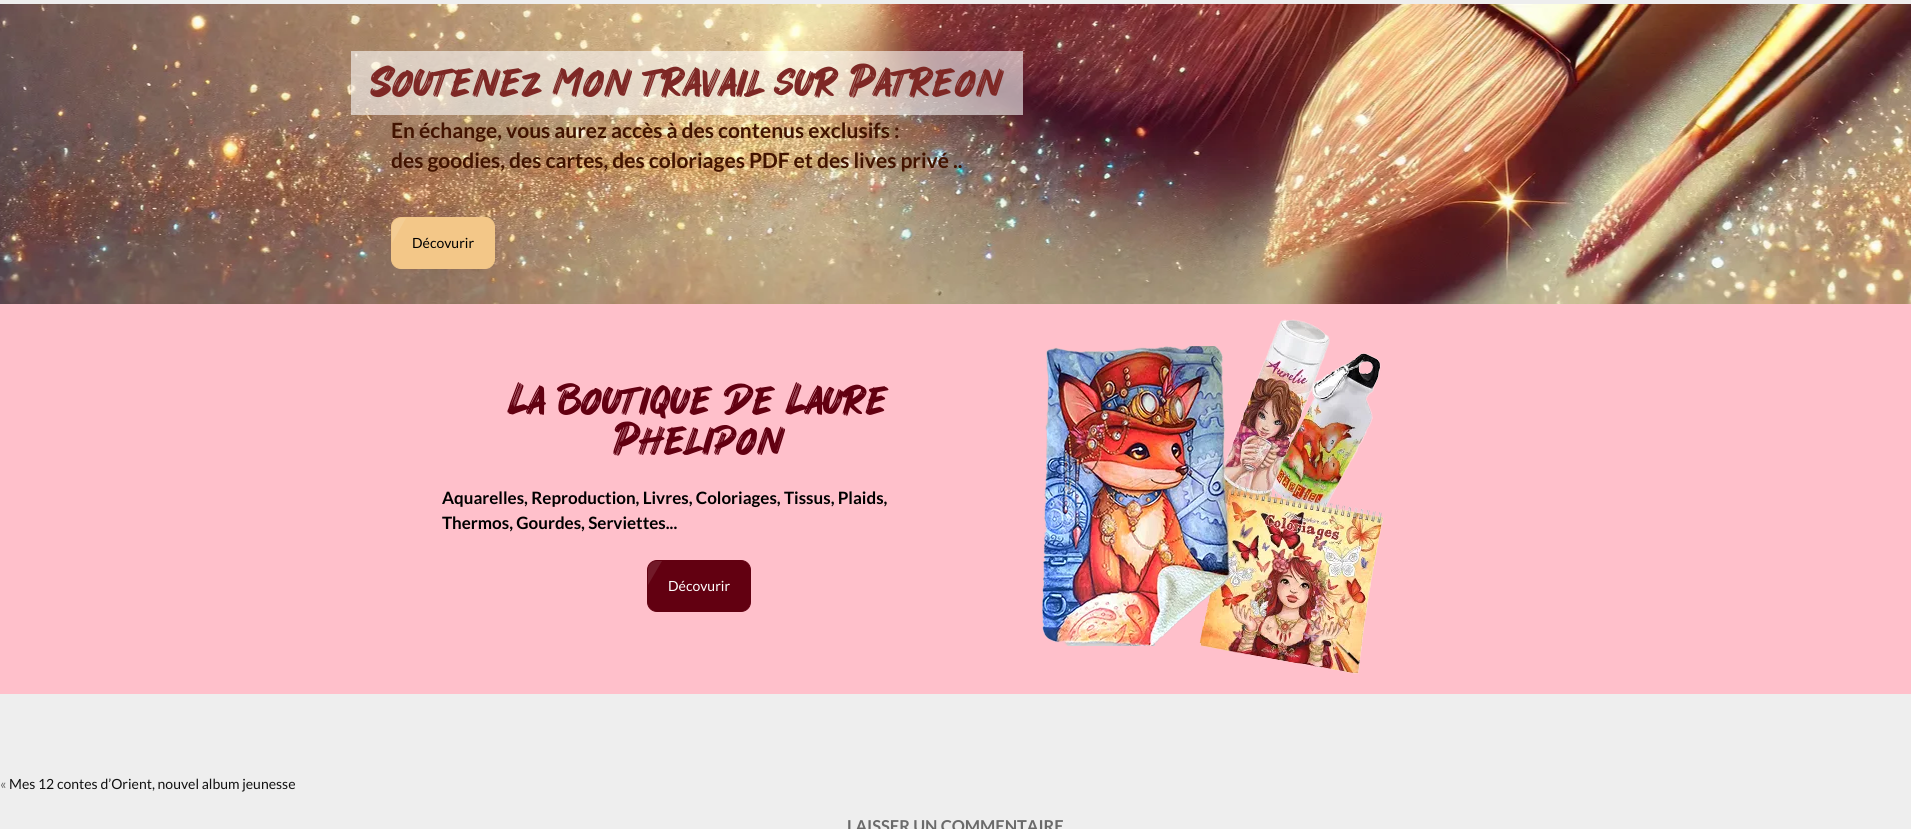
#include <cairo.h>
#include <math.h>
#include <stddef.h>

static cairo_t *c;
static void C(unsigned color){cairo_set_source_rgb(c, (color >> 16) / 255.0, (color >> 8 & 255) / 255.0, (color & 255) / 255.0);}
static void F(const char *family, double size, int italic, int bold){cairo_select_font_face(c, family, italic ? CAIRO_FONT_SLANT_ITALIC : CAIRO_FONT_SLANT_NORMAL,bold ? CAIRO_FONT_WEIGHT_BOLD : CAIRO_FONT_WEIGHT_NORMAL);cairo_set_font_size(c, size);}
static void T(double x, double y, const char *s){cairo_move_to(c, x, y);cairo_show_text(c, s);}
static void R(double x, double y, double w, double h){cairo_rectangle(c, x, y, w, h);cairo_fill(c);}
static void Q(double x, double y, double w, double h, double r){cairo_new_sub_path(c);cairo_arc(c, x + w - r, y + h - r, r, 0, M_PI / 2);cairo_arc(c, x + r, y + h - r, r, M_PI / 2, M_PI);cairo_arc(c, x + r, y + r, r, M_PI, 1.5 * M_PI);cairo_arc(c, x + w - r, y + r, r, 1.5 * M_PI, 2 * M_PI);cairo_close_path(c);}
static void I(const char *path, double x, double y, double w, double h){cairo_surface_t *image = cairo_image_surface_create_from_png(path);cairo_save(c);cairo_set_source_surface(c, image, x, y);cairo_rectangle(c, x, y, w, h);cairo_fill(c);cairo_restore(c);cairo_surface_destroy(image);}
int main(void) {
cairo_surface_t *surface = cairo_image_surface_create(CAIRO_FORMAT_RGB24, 1911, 829);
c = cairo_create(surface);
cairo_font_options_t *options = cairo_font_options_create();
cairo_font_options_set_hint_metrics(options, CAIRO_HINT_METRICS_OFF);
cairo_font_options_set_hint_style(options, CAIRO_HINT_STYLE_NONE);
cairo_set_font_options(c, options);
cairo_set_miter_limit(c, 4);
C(0xeeeeee);
cairo_paint(c);
I("1.png",0,4,1911,300);
cairo_set_source_rgba(c,1,1,1,0.58);
R(351,51,672,64);
F("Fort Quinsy",46,0,0);
C(0x7e2825);
T(371,97,"Soutenez mon travail sur Patreon");
F("Lato",21,0,1);
C(0x421300);
T(391,138,"En échange, vous aurez accès à des contenus exclusifs :");
T(391,168,"des goodies, des cartes, des coloriages PDF et des lives privé ..");
C(0xf3c788);
Q(391.5,217.5,103,51,9.5);
cairo_fill_preserve(c);
cairo_set_line_width(c,1);
cairo_stroke(c);
C(0xf4cd94);
cairo_new_path(c);
cairo_move_to(c,401,218);
cairo_curve_to(c,396,218,392,222,392,227);
cairo_line_to(c,392,243);
cairo_line_to(c,406,218);
cairo_close_path(c);
cairo_fill(c);
F("Lato",14,0,0);
C(0x000000);
T(412,248,"Décovurir");
C(0xffc0cb);
R(0,304,1911,390);
F("Fort Quinsy",46,0,0);
C(0x620011);
T(509,415,"La boutique de Laure");
T(614,455,"Phelipon");
F("Lato",17,0,1);
C(0x000000);
T(442,504,"Aquarelles, Reproduction, Livres, Coloriages, Tissus, Plaids,");
T(442,529,"Thermos, Gourdes, Serviettes...");
C(0x620011);
Q(647.5,560.5,103,51,9.5);
cairo_fill_preserve(c);
cairo_stroke(c);
C(0x721a29);
cairo_new_path(c);
cairo_move_to(c,657,561);
cairo_curve_to(c,652,561,648,565,648,570);
cairo_line_to(c,648,585);
cairo_line_to(c,662,561);
cairo_close_path(c);
cairo_fill(c);
F("Lato",14,0,0);
C(0xffffff);
T(668,591,"Décovurir");
I("2.png",1042,319,342,355);
C(0x6a6a6a);
T(0,789,"«");
C(0x111111);
T(9,789,"Mes 12 contes d’Orient, nouvel album jeunesse");
F("Lato",16.4,0,1);
C(0x6a6a6a);
T(847,832,"LAISSER UN COMMENTAIRE");
cairo_surface_write_to_png(surface, "o.png");
cairo_font_options_destroy(options);
cairo_destroy(c);
cairo_surface_destroy(surface);
return 0;
}
